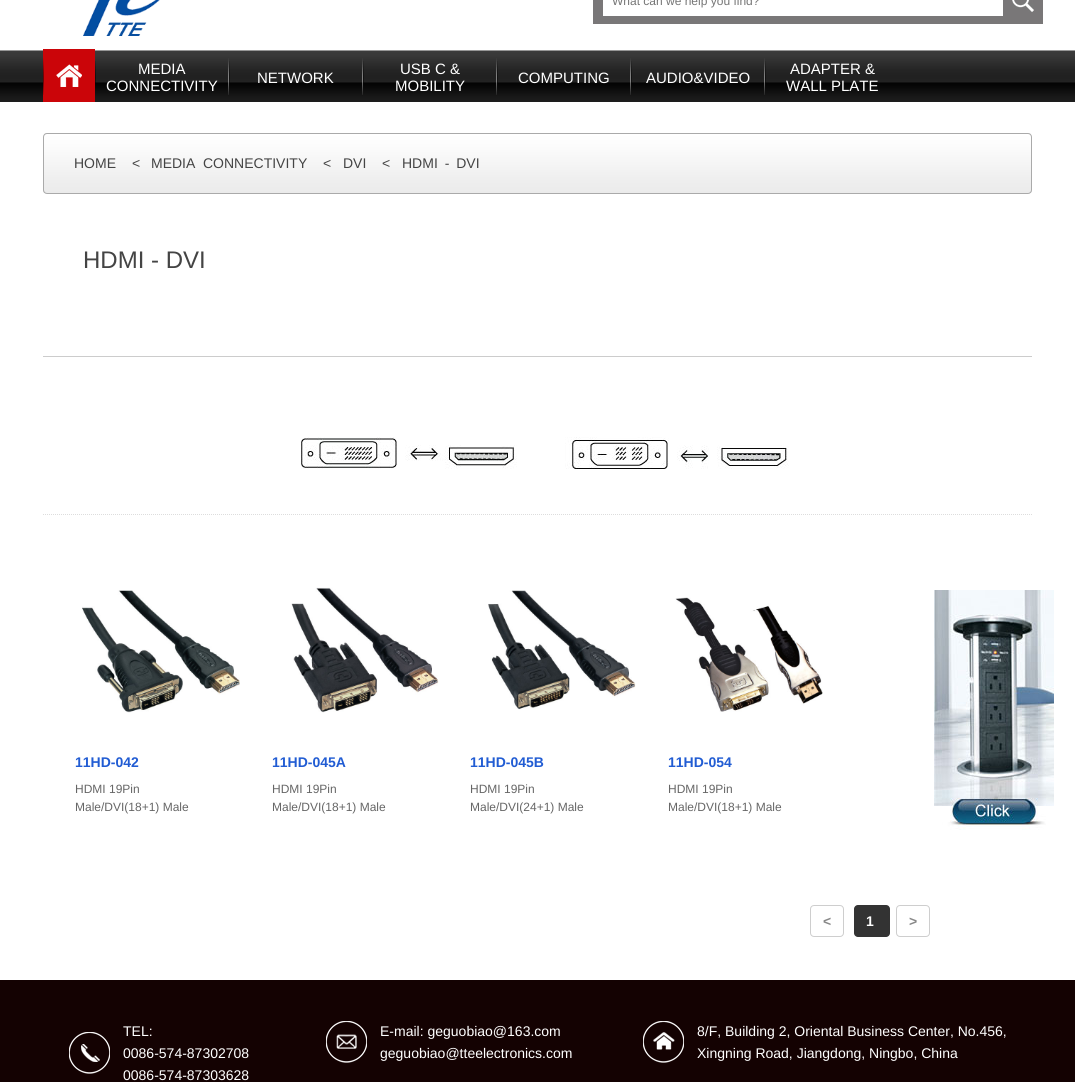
#include <cairo.h>
#include <math.h>
#include <stddef.h>

static cairo_t *c;
static void C(unsigned color){cairo_set_source_rgb(c, (color >> 16) / 255.0, (color >> 8 & 255) / 255.0, (color & 255) / 255.0);}
static void F(const char *family, double size, int italic, int bold){cairo_select_font_face(c, family, italic ? CAIRO_FONT_SLANT_ITALIC : CAIRO_FONT_SLANT_NORMAL,bold ? CAIRO_FONT_WEIGHT_BOLD : CAIRO_FONT_WEIGHT_NORMAL);cairo_set_font_size(c, size);}
static void T(double x, double y, const char *s){cairo_move_to(c, x, y);cairo_show_text(c, s);}
static void L(double x, double y, const char *s, double letter, double word){cairo_move_to(c, x, y);while (*s) {char ch[5] = {0};int n = 0;do ch[n++] = *s++; while ((*s & 0xC0) == 0x80);cairo_show_text(c, ch);cairo_rel_move_to(c, letter + word * (*ch == ' '), 0);}}
static void R(double x, double y, double w, double h){cairo_rectangle(c, x, y, w, h);cairo_fill(c);}
static void Q(double x, double y, double w, double h, double r){cairo_new_sub_path(c);cairo_arc(c, x + w - r, y + h - r, r, 0, M_PI / 2);cairo_arc(c, x + r, y + h - r, r, M_PI / 2, M_PI);cairo_arc(c, x + r, y + r, r, M_PI, 1.5 * M_PI);cairo_arc(c, x + w - r, y + r, r, 1.5 * M_PI, 2 * M_PI);cairo_close_path(c);}
static void I(const char *path, double x, double y, double w, double h){cairo_surface_t *image = cairo_image_surface_create_from_png(path);cairo_save(c);cairo_set_source_surface(c, image, x, y);cairo_rectangle(c, x, y, w, h);cairo_fill(c);cairo_restore(c);cairo_surface_destroy(image);}
int main(void) {
cairo_surface_t *surface = cairo_image_surface_create(CAIRO_FORMAT_RGB24, 1075, 1082);
c = cairo_create(surface);
cairo_font_options_t *options = cairo_font_options_create();
cairo_font_options_set_hint_metrics(options, CAIRO_HINT_METRICS_OFF);
cairo_font_options_set_hint_style(options, CAIRO_HINT_STYLE_NONE);
cairo_set_font_options(c, options);
cairo_set_miter_limit(c, 4);
C(0xffffff);
cairo_paint(c);
I("1.png",0,50,1075,52);
I("2.png",83,0,77,36);
C(0x797778);
R(593,0,450,24);
C(0xffffff);
R(603,0,400,16);
F("Liberation Sans",12,0,0);
C(0x757575);
T(612,5,"What can we help you find?");
I("3.png",1012,0,22,12);
C(0xcb0509);
R(43,49,52,53);
I("4.png",56,64,26,23);
I("5.png",43,58,1,37);
I("6.png",228,58,1,37);
I("7.png",95,61,1,22);
F("Liberation Sans",15,0,0);
C(0xffffff);
T(138,74,"MEDIA");
T(106,91,"CONNECTIVITY");
I("6.png",362,58,1,37);
I("7.png",229,61,1,22);
T(257,83,"NETWORK");
I("6.png",496,58,1,37);
I("7.png",363,61,1,22);
T(400,74,"USB C &");
T(395,91,"MOBILITY");
I("6.png",630,58,1,37);
I("7.png",497,61,1,22);
T(518,83,"COMPUTING");
I("6.png",764,58,1,37);
I("7.png",631,61,1,22);
T(646,83,"AUDIO&VIDEO");
I("7.png",765,61,1,22);
T(790,74,"ADAPTER &");
T(786,91,"WALL PLATE");
I("8.png",43,133,989,60);
Q(43.5,133.5,988,60,3.5);
C(0xaaaaaa);
cairo_set_line_width(c,1);
cairo_stroke(c);
F("Liberation Sans",14,0,0);
C(0x444444);
T(74,168,"HOME");
T(132,168,"<");
T(151,168,"MEDIA");
T(203,168,"CONNECTIVITY");
T(323,168,"<");
T(343,168,"DVI");
T(382,168,"<");
L(402,168,"HDMI - DVI",0,3);
F("Liberation Sans",24,0,0);
T(83,268,"HDMI - DVI");
C(0xcccccc);
R(43,356,989,1);
cairo_new_path(c);
cairo_move_to(c,43,514.5);
cairo_line_to(c,1032,514.5);
C(0xdddddd);
cairo_set_dash(c,(double[]){1,1},2,0);
cairo_stroke(c);
I("9.png",301,437,488,32);
I("10.png",82,590,158,123);
F("Liberation Sans",14,0,1);
C(0x215cd3);
T(75,767,"11HD-042");
F("Liberation Sans",12,0,0);
C(0x666666);
T(75,793,"HDMI 19Pin");
T(75,811,"Male/DVI(18+1) Male");
I("11.png",291,587,148,126);
F("Liberation Sans",14,0,1);
C(0x215cd3);
T(272,767,"11HD-045A");
F("Liberation Sans",12,0,0);
C(0x666666);
T(272,793,"HDMI 19Pin");
T(272,811,"Male/DVI(18+1) Male");
I("12.png",488,590,148,120);
F("Liberation Sans",14,0,1);
C(0x215cd3);
T(470,767,"11HD-045B");
F("Liberation Sans",12,0,0);
C(0x666666);
T(470,793,"HDMI 19Pin");
T(470,811,"Male/DVI(24+1) Male");
I("13.png",675,597,148,115);
F("Liberation Sans",14,0,1);
C(0x215cd3);
T(668,767,"11HD-054");
F("Liberation Sans",12,0,0);
C(0x666666);
T(668,793,"HDMI 19Pin");
T(668,811,"Male/DVI(18+1) Male");
Q(810.5,905.5,33,31,3.5);
C(0xcecece);
cairo_set_dash(c,NULL,0,0);
cairo_stroke(c);
F("Liberation Sans",14,0,1);
C(0x888888);
T(823,926,"<");
C(0x333333);
Q(854,905,36,32,4);
cairo_fill(c);
C(0xffffff);
T(866,926,"1");
Q(896.5,905.5,33,31,3.5);
C(0xcecece);
cairo_stroke(c);
C(0x888888);
T(909,926,">");
I("14.png",934,590,120,240);
C(0x140202);
R(0,980,1075,102);
I("15.png",69,1032,41,42);
F("Liberation Sans",14,0,0);
C(0xffffff);
T(123,1036,"TEL:");
T(123,1058,"0086-574-87302708");
T(123,1080,"0086-574-87303628");
I("16.png",326,1021,41,42);
T(380,1036,"E-mail: geguobiao@163.com");
T(380,1058,"geguobiao@tteelectronics.com");
I("17.png",643,1021,41,42);
T(697,1036,"8/F, Building 2, Oriental Business Center, No.456,");
T(697,1058,"Xingning Road, Jiangdong, Ningbo, China");
cairo_surface_write_to_png(surface, "o.png");
cairo_font_options_destroy(options);
cairo_destroy(c);
cairo_surface_destroy(surface);
return 0;
}
